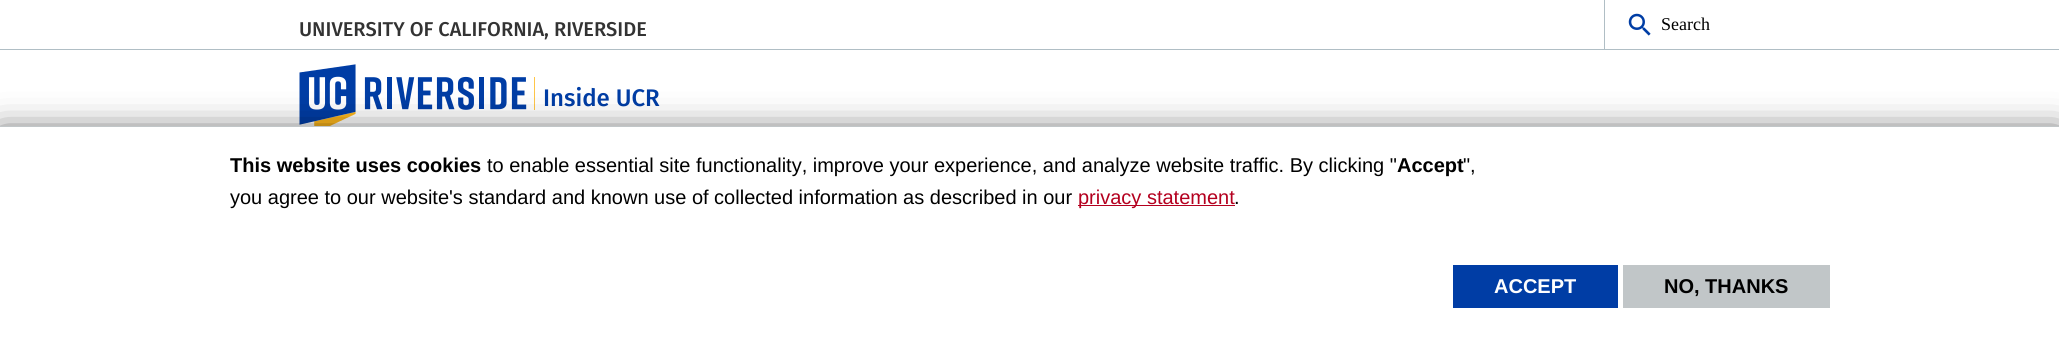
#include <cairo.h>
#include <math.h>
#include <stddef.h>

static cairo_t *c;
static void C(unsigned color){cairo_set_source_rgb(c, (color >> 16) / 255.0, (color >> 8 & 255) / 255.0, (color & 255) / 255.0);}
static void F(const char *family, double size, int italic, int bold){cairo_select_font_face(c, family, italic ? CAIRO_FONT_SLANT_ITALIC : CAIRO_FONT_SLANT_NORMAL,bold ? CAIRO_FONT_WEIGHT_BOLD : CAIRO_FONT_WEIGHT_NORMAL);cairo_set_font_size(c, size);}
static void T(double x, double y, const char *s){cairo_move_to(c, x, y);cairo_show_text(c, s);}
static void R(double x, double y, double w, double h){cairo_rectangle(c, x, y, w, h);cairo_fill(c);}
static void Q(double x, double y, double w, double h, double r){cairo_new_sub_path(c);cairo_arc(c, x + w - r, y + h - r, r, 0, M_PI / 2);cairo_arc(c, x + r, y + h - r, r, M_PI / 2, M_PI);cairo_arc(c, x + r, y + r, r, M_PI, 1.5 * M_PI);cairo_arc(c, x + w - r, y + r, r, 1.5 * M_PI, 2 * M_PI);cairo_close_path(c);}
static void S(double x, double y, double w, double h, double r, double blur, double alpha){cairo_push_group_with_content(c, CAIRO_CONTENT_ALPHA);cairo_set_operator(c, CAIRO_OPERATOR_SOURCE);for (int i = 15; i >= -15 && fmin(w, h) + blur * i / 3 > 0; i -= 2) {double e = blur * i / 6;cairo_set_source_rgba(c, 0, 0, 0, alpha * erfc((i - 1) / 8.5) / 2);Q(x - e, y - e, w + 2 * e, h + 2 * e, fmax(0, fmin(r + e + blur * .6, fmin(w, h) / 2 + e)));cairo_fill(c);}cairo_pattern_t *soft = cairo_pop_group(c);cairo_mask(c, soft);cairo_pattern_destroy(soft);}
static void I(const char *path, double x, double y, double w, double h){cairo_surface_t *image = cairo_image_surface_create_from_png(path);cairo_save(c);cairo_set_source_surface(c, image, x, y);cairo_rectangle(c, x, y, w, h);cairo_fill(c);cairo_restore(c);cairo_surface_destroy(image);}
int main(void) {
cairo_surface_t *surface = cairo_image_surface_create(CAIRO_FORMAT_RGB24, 2059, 358);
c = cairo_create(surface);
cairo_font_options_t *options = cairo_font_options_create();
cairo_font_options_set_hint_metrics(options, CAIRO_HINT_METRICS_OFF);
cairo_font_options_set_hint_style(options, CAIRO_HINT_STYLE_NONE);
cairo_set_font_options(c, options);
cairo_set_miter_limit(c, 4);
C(0xffffff);
cairo_paint(c);
C(0xb0bec5);
R(0,49,2059,1);
F("Fira Sans Medium",20,0,0);
C(0x333333);
T(299,36,"UNIVERSITY OF CALIFORNIA, RIVERSIDE");
C(0xb0bec5);
R(1604,0,1,50);
I("1.png",1628,13,23,23);
F("Liberation Serif",18,0,0);
C(0x000000);
T(1661,30,"Search");
I("2.png",299,64,236,62);
F("Fira Sans Medium",24,0,0);
C(0x003da5);
T(543,106,"Inside UCR");
C(0x020203);
S(0,139,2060,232,0,19,1);
C(0xffffff);
R(0,127,2059,231);
C(0xc1c6c8);
R(0,126,2059,1);
F("Liberation Sans",20,0,1);
C(0x000000);
T(230,172,"This website uses cookies");
F("Liberation Sans",20,0,0);
T(487,172,"to enable essential site functionality, improve your experience, and analyze website traffic. By clicking \"");
F("Liberation Sans",20,0,1);
T(1397,172,"Accept");
F("Liberation Sans",20,0,0);
T(1463,172,"\",");
T(230,204,"you agree to our website's standard and known use of collected information as described in our");
C(0xb4001f);
R(1078,205,157,1);
T(1078,204,"privacy statement");
C(0x000000);
T(1234,204,".");
C(0x003da5);
R(1453,265,165,43);
F("Liberation Sans",20,0,1);
C(0xfefefe);
T(1494,293,"ACCEPT");
C(0xc1c6c8);
R(1623,265,207,43);
C(0x000000);
T(1664,293,"NO, THANKS");
cairo_surface_write_to_png(surface, "o.png");
cairo_font_options_destroy(options);
cairo_destroy(c);
cairo_surface_destroy(surface);
return 0;
}
